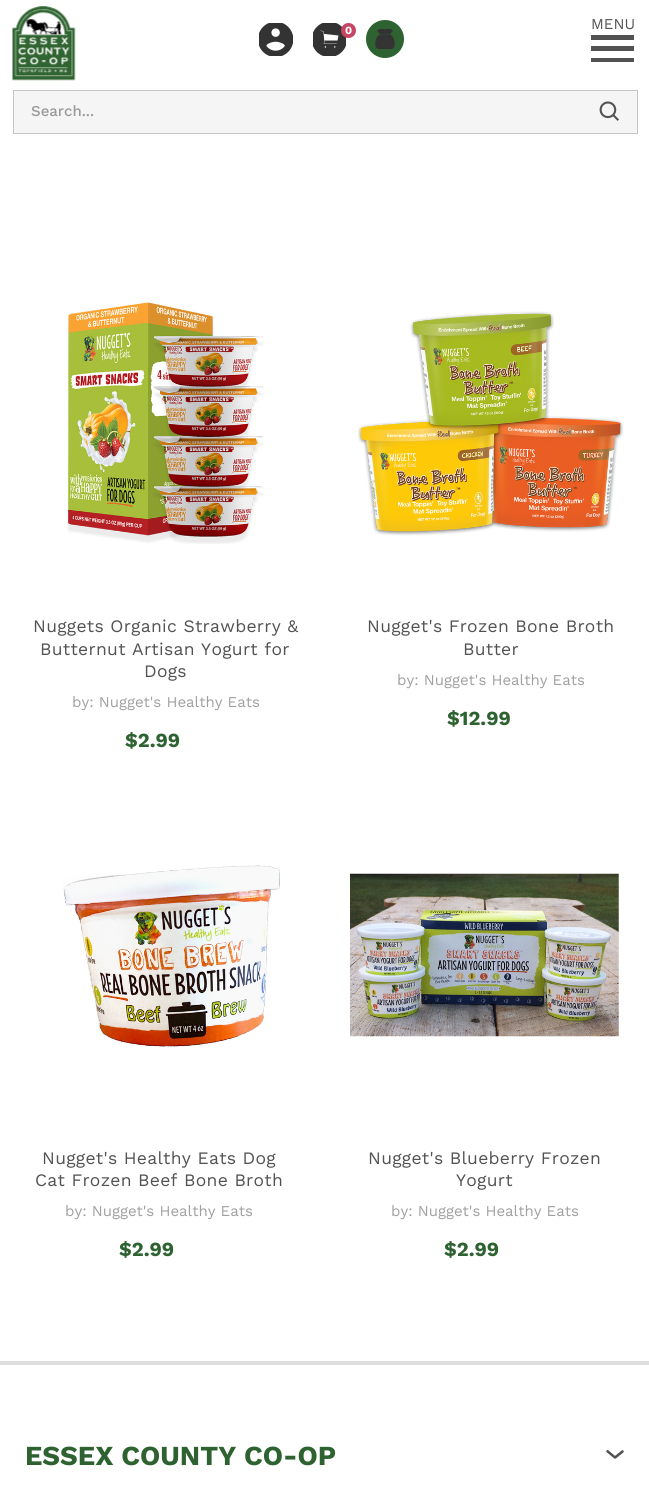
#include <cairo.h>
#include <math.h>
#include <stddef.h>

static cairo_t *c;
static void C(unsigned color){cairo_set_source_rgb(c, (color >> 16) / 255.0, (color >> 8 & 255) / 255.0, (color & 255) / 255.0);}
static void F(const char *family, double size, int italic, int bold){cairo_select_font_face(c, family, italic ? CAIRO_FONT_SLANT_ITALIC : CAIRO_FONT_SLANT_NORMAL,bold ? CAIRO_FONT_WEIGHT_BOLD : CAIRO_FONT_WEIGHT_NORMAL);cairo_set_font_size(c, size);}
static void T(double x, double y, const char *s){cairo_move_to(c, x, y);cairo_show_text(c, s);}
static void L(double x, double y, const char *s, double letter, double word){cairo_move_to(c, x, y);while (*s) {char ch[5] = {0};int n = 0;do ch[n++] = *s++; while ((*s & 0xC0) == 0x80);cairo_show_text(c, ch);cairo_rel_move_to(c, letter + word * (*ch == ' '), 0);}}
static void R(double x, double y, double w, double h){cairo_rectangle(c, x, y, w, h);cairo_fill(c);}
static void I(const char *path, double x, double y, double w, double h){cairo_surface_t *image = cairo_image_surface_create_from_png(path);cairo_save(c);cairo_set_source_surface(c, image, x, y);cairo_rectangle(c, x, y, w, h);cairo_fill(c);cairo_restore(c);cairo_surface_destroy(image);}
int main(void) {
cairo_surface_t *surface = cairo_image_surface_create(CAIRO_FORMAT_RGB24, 649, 1506);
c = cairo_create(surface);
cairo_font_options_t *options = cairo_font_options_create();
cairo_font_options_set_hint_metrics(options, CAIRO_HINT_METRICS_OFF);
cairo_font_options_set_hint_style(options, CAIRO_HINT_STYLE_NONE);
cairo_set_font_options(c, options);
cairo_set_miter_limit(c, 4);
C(0xffffff);
cairo_paint(c);
F("Work Sans",15,0,0);
C(0x525252);
T(591,29,"MENU");
cairo_new_path(c);
cairo_move_to(c,591,35);
cairo_line_to(c,634,35);
cairo_line_to(c,634,40);
cairo_line_to(c,591,40);
cairo_close_path(c);
cairo_move_to(c,591,46);
cairo_line_to(c,634,46);
cairo_line_to(c,634,51);
cairo_line_to(c,591,51);
cairo_close_path(c);
cairo_move_to(c,591,58);
cairo_line_to(c,634,58);
cairo_line_to(c,634,62);
cairo_line_to(c,591,62);
cairo_close_path(c);
cairo_fill(c);
I("1.png",12,6,64,75);
I("2.png",259,23,34,33);
I("3.png",313,23,33,33);
C(0xc64563);
cairo_arc(c,348.5,30.5,7.5,0,2 * M_PI);
cairo_fill(c);
F("Work Sans",11,0,1);
C(0xffffff);
T(345,34,"0");
C(0x2e6331);
cairo_new_path(c);
cairo_arc(c,385,39,19,0,2 * M_PI);
cairo_fill(c);
I("4.png",375,29,20,20);
C(0xf5f5f5);
cairo_rectangle(c,13.5,90.5,624,43);
cairo_fill_preserve(c);
C(0xc4c4c4);
cairo_set_line_width(c,1);
cairo_stroke(c);
F("Work Sans Medium",15,0,0);
C(0x999999);
T(31,116,"Search...");
I("5.png",599,101,20,20);
I("6.png",67,302,197,242);
F("Work Sans",17.5,0,0);
C(0x525252);
L(33,632,"Nuggets Organic Strawberry &",.3,0);
L(40,655,"Butternut Artisan Yogurt for",.3,0);
L(144,677,"Dogs",.3,0);
F("Work Sans",15,0,0);
C(0xa0a0a0);
T(72,707,"by: Nugget's Healthy Eats");
F("Work Sans",20,0,1);
C(0x2e6331);
T(125,747,"$2.99");
I("7.png",358,311,266,225);
F("Work Sans",17.5,0,0);
C(0x525252);
L(367,632,"Nugget's Frozen Bone Broth",.3,0);
L(463,655,"Butter",.3,0);
F("Work Sans",15,0,0);
C(0xa0a0a0);
T(397,685,"by: Nugget's Healthy Eats");
F("Work Sans",20,0,1);
C(0x2e6331);
T(447,725,"$12.99");
I("8.png",63,865,217,182);
F("Work Sans",17.5,0,0);
C(0x525252);
L(42,1164,"Nugget's Healthy Eats Dog",.3,0);
L(35,1186,"Cat Frozen Beef Bone Broth",.3,0);
F("Work Sans",15,0,0);
C(0xa0a0a0);
T(65,1216,"by: Nugget's Healthy Eats");
F("Work Sans",20,0,1);
C(0x2e6331);
T(119,1256,"$2.99");
I("9.png",350,873,269,164);
F("Work Sans",17.5,0,0);
C(0x525252);
L(368,1164,"Nugget's Blueberry Frozen",.3,0);
L(456,1186,"Yogurt",.3,0);
F("Work Sans",15,0,0);
C(0xa0a0a0);
T(391,1216,"by: Nugget's Healthy Eats");
F("Work Sans",20,0,1);
C(0x2e6331);
T(444,1256,"$2.99");
C(0xdedede);
R(0,1361,649,4);
F("Work Sans",27.5,0,1);
C(0x2e6331);
T(25,1465,"ESSEX COUNTY CO-OP");
I("10.png",606,1450,18,9);
cairo_surface_write_to_png(surface, "o.png");
cairo_font_options_destroy(options);
cairo_destroy(c);
cairo_surface_destroy(surface);
return 0;
}
